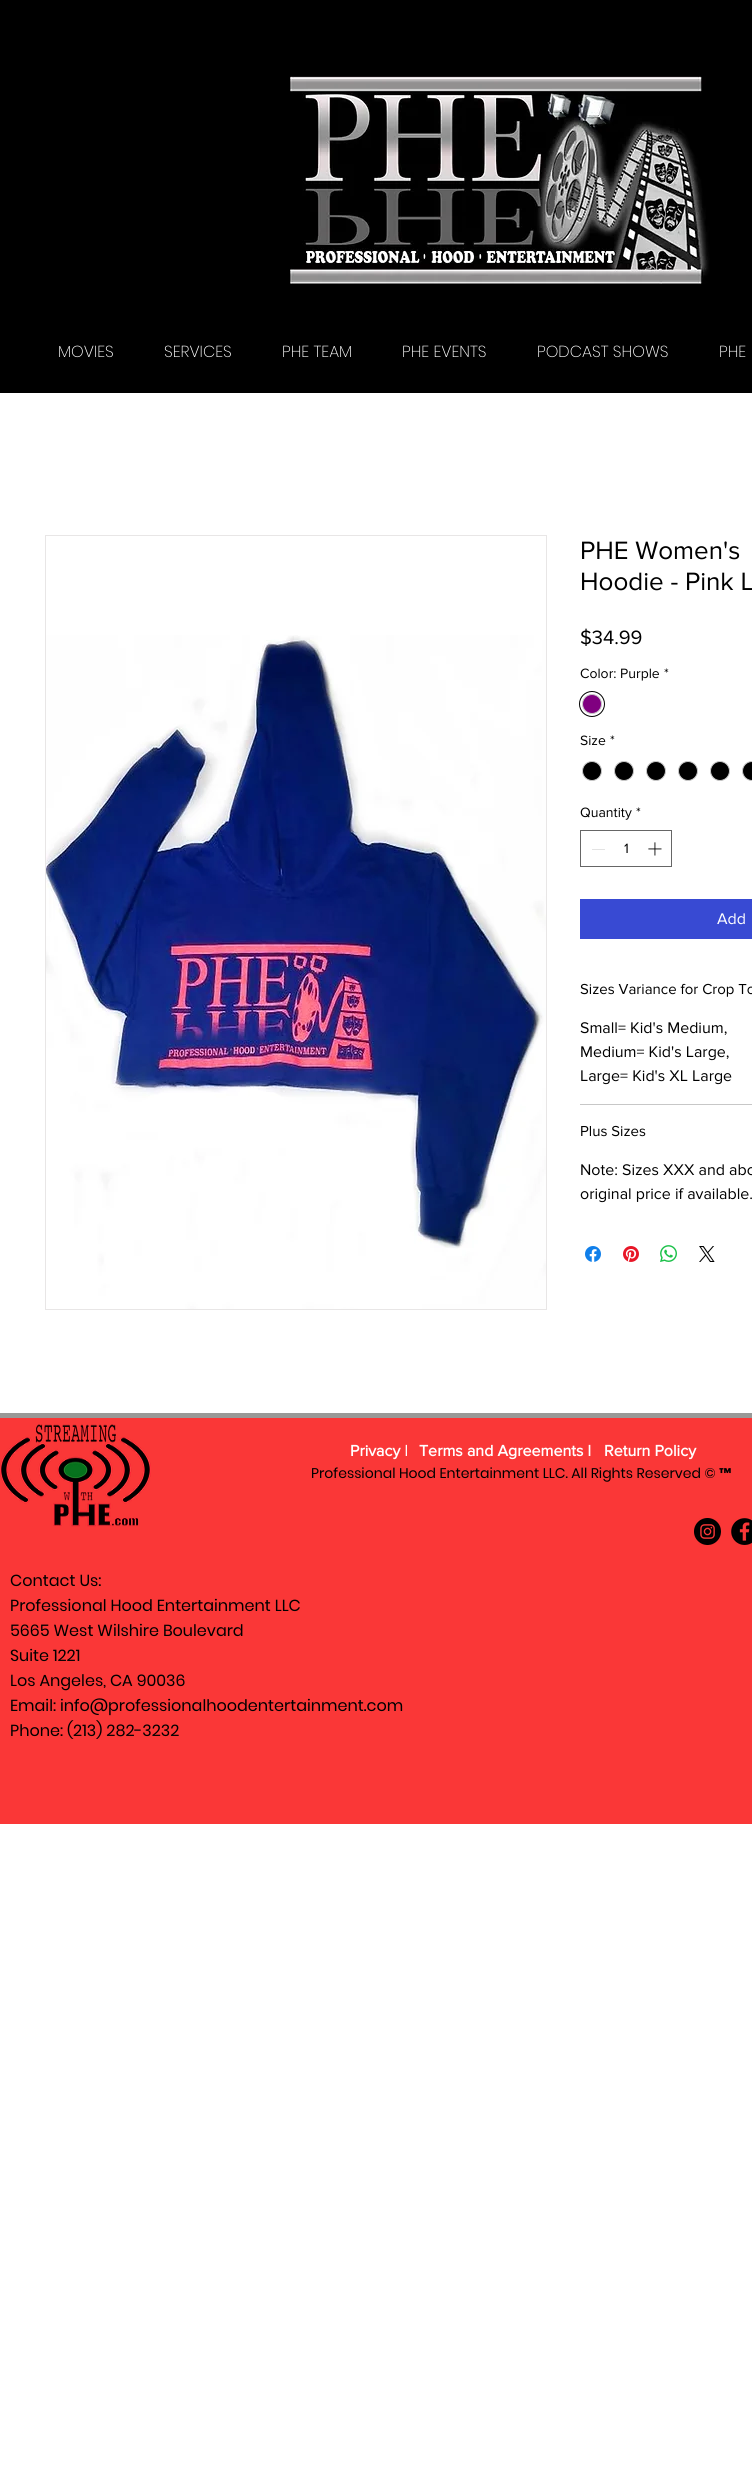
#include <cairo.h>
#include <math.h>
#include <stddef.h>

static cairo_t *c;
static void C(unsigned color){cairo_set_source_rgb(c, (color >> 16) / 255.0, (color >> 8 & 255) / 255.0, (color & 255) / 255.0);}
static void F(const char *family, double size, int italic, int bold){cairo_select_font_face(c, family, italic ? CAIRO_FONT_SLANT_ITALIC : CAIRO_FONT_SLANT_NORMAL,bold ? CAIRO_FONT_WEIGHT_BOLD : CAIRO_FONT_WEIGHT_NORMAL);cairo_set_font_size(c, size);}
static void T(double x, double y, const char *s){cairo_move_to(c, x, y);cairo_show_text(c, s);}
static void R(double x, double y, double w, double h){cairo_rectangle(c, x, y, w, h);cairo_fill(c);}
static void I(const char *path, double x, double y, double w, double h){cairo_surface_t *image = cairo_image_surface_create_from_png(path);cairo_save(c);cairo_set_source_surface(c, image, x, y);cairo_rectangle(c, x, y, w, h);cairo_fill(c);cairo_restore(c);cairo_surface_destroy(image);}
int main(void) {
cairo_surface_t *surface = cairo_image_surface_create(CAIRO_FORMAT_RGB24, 752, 2476);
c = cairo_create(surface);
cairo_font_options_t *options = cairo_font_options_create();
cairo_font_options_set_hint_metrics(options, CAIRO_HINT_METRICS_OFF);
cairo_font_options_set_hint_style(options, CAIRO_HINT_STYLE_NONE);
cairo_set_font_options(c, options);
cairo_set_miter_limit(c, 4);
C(0xffffff);
cairo_paint(c);
C(0x000000);
R(0,0,752,393);
I("1.png",290,76,420,208);
F("Poppins ExtraLight",16,0,0);
C(0xffffff);
T(58,357,"MOVIES");
T(164,357,"SERVICES");
T(282,357,"PHE TEAM");
T(402,357,"PHE EVENTS");
T(537,357,"PODCAST SHOWS");
T(719,357,"PHE");
cairo_rectangle(c,45.5,535.5,501,774);
C(0xe8e6e6);
cairo_set_line_width(c,1);
cairo_stroke(c);
I("2.png",46,635,500,674);
F("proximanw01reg",26,0,0);
C(0x000000);
T(580,559,"PHE Women's");
T(580,590,"Hoodie - Pink L");
F("proximanw01reg",20,0,0);
T(580,644,"$34.99");
F("proximanw01reg",14,0,0);
T(580,678,"Color: Purple");
T(664,678,"*");
cairo_new_path(c);
cairo_arc(c,592,704,12.5,0,2 * M_PI);
cairo_stroke(c);
C(0x800080);
cairo_arc(c,592,704,9.5,0,2 * M_PI);
cairo_fill_preserve(c);
C(0xc9c9c9);
cairo_stroke(c);
C(0x000000);
T(580,745,"Size");
T(610,745,"*");
cairo_new_path(c);
cairo_arc(c,592,771,9.5,0,2 * M_PI);
cairo_fill_preserve(c);
C(0xc9c9c9);
cairo_stroke(c);
C(0x000000);
cairo_arc(c,624,771,9.5,0,2 * M_PI);
cairo_fill_preserve(c);
C(0xc9c9c9);
cairo_stroke(c);
C(0x000000);
cairo_arc(c,656,771,9.5,0,2 * M_PI);
cairo_fill_preserve(c);
C(0xc9c9c9);
cairo_stroke(c);
C(0x000000);
cairo_arc(c,688,771,9.5,0,2 * M_PI);
cairo_fill_preserve(c);
C(0xc9c9c9);
cairo_stroke(c);
C(0x000000);
cairo_arc(c,720,771,9.5,0,2 * M_PI);
cairo_fill_preserve(c);
C(0xc9c9c9);
cairo_stroke(c);
C(0x000000);
cairo_arc(c,752,771,9.5,0,2 * M_PI);
cairo_fill_preserve(c);
C(0xc9c9c9);
cairo_stroke(c);
C(0x000000);
T(580,817,"Quantity");
T(636,817,"*");
cairo_rectangle(c,580.5,830.5,91,36);
C(0x666666);
cairo_stroke(c);
C(0xe3e3e3);
R(592,849,13,1);
C(0x000000);
T(624,853,"1");
I("3.png",648,842,14,14);
C(0x384ad3);
R(580,899,172,40);
F("proximanw01reg",16,0,0);
C(0xffffff);
T(717,924,"Add");
C(0xc7c7c7);
R(580,1104,172,1);
F("proximanw01reg",15,0,0);
C(0x000000);
T(580,994,"Sizes Variance for Crop To");
F("proximanw01reg",16,0,0);
T(580,1033,"Small= Kid's Medium,");
T(580,1057,"Medium= Kid's Large,");
T(580,1081,"Large= Kid's XL Large");
F("proximanw01reg",15,0,0);
T(580,1136,"Plus Sizes");
F("proximanw01reg",16,0,0);
T(580,1175,"Note: Sizes XXX and abo");
T(580,1199,"original price if available.");
I("4.png",585,1246,16,16);
I("5.png",623,1246,16,16);
I("6.png",660,1245,17,17);
I("7.png",699,1246,16,16);
C(0xfa3737);
R(0,1418,752,406);
C(0x999997);
R(0,1413,752,5);
I("8.png",0,1424,151,103);
F("proximanw01reg",16,0,1);
C(0xffffff);
T(350,1456,"Privacy l");
T(419,1456,"Terms and Agreements l");
T(604,1456,"Return Policy");
F("Poppins",14,0,0);
C(0x000000);
T(311,1478,"Professional Hood Entertainment LLC. All Rights Reserved ©");
F("Poppins",14,0,1);
T(719,1478,"™");
I("9.png",694,1518,27,27);
I("10.png",731,1518,21,27);
F("Poppins",16,0,0);
T(10,1586,"Contact Us:");
T(10,1611,"Professional Hood Entertainment LLC");
T(10,1636,"5665 West Wilshire Boulevard");
T(10,1661,"Suite 1221");
T(10,1686,"Los Angeles, CA 90036");
T(10,1711,"Email: info@professionalhoodentertainment.com");
T(10,1736,"Phone: (213) 282-3232");
cairo_surface_write_to_png(surface, "o.png");
cairo_font_options_destroy(options);
cairo_destroy(c);
cairo_surface_destroy(surface);
return 0;
}
